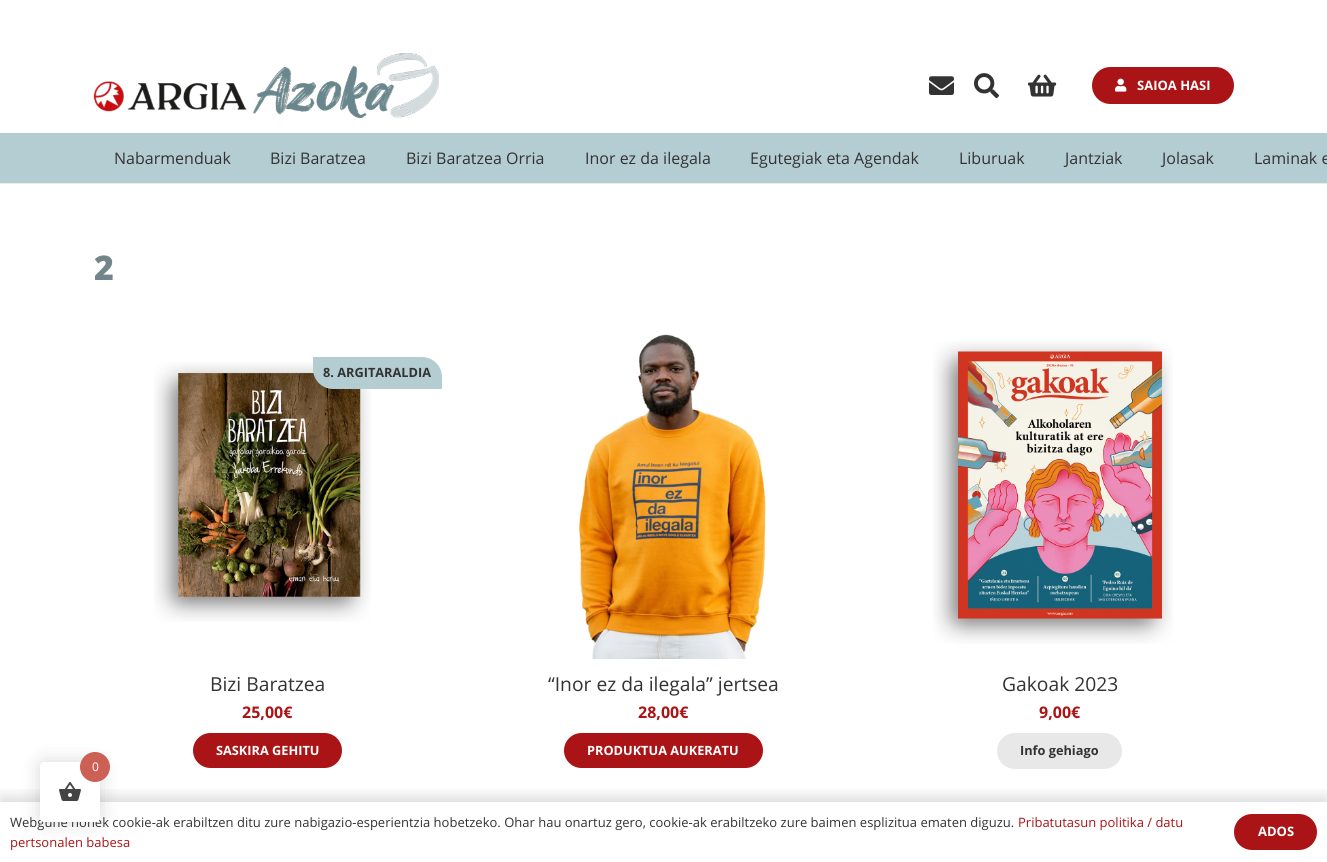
#include <cairo.h>
#include <math.h>
#include <stddef.h>

static cairo_t *c;
static void C(unsigned color){cairo_set_source_rgb(c, (color >> 16) / 255.0, (color >> 8 & 255) / 255.0, (color & 255) / 255.0);}
static void F(const char *family, double size, int italic, int bold){cairo_select_font_face(c, family, italic ? CAIRO_FONT_SLANT_ITALIC : CAIRO_FONT_SLANT_NORMAL,bold ? CAIRO_FONT_WEIGHT_BOLD : CAIRO_FONT_WEIGHT_NORMAL);cairo_set_font_size(c, size);}
static void T(double x, double y, const char *s){cairo_move_to(c, x, y);cairo_show_text(c, s);}
static void R(double x, double y, double w, double h){cairo_rectangle(c, x, y, w, h);cairo_fill(c);}
static void Q(double x, double y, double w, double h, double r){cairo_new_sub_path(c);cairo_arc(c, x + w - r, y + h - r, r, 0, M_PI / 2);cairo_arc(c, x + r, y + h - r, r, M_PI / 2, M_PI);cairo_arc(c, x + r, y + r, r, M_PI, 1.5 * M_PI);cairo_arc(c, x + w - r, y + r, r, 1.5 * M_PI, 2 * M_PI);cairo_close_path(c);}
static void S(double x, double y, double w, double h, double r, double blur, double alpha){cairo_push_group_with_content(c, CAIRO_CONTENT_ALPHA);cairo_set_operator(c, CAIRO_OPERATOR_SOURCE);for (int i = 15; i >= -15 && fmin(w, h) + blur * i / 3 > 0; i -= 2) {double e = blur * i / 6;cairo_set_source_rgba(c, 0, 0, 0, alpha * erfc((i - 1) / 8.5) / 2);Q(x - e, y - e, w + 2 * e, h + 2 * e, fmax(0, fmin(r + e + blur * .6, fmin(w, h) / 2 + e)));cairo_fill(c);}cairo_pattern_t *soft = cairo_pop_group(c);cairo_mask(c, soft);cairo_pattern_destroy(soft);}
static void I(const char *path, double x, double y, double w, double h){cairo_surface_t *image = cairo_image_surface_create_from_png(path);cairo_save(c);cairo_set_source_surface(c, image, x, y);cairo_rectangle(c, x, y, w, h);cairo_fill(c);cairo_restore(c);cairo_surface_destroy(image);}
int main(void) {
cairo_surface_t *surface = cairo_image_surface_create(CAIRO_FORMAT_RGB24, 1327, 862);
c = cairo_create(surface);
cairo_font_options_t *options = cairo_font_options_create();
cairo_font_options_set_hint_metrics(options, CAIRO_HINT_METRICS_OFF);
cairo_font_options_set_hint_style(options, CAIRO_HINT_STYLE_NONE);
cairo_set_font_options(c, options);
cairo_set_miter_limit(c, 4);
C(0xffffff);
cairo_paint(c);
I("1.png",93,81,154,31);
I("2.png",252,53,187,65);
I("3.png",929,76,25,19);
I("4.png",974,73,25,26);
I("5.png",1028,74,29,23);
C(0xab1416);
Q(1092,67,142,37,18.5);
cairo_fill(c);
I("6.png",1115,78,12,14);
F("Open Sans",13,0,1);
C(0xffffff);
T(1137,90,"SAIOA HASI");
C(0xebebeb);
R(0,183,1327,1);
C(0xb3cdd3);
R(0,133,1327,50);
F("Open Sans",16,0,0);
C(0x333333);
T(114,164,"Nabarmenduak");
T(270,164,"Bizi Baratzea");
T(406,164,"Bizi Baratzea Orria");
T(585,164,"Inor ez da ilegala");
T(750,164,"Egutegiak eta Agendak");
T(959,164,"Liburuak");
T(1065,164,"Jantziak");
T(1162,164,"Jolasak");
T(1254,164,"Laminak e");
F("Open Sans ExtraBold",34,0,0);
C(0x71858a);
T(94,280,"2");
I("7.png",154,362,217,260);
C(0xb3cdd3);
cairo_new_path(c);
cairo_move_to(c,313,357);
cairo_line_to(c,422,357);
cairo_curve_to(c,433,357,442,366,442,377);
cairo_line_to(c,442,389);
cairo_line_to(c,333,389);
cairo_curve_to(c,322,389,313,380,313,369);
cairo_close_path(c);
cairo_fill(c);
F("Open Sans",12.75,0,1);
C(0x333333);
T(323,377,"8. ARGITARALDIA");
F("Open Sans",19.25,0,0);
T(210,691,"Bizi Baratzea");
F("Open Sans",16,0,1);
C(0xab1416);
T(242,718,"25,00€");
Q(193,733,149,35,17.5);
cairo_fill(c);
F("Open Sans",12.75,0,1);
C(0xffffff);
T(216,755,"SASKIRA GEHITU");
I("8.png",579,334,187,325);
F("Open Sans",19.25,0,0);
C(0x333333);
T(548,691,"“Inor ez da ilegala” jertsea");
F("Open Sans",16,0,1);
C(0xab1416);
T(638,718,"28,00€");
Q(564,733,199,35,17.5);
cairo_fill(c);
F("Open Sans",12.75,0,1);
C(0xffffff);
T(587,755,"PRODUKTUA AUKERATU");
I("9.png",933,341,240,303);
F("Open Sans",19.25,0,0);
C(0x333333);
T(1002,691,"Gakoak 2023");
F("Open Sans",16,0,1);
C(0xab1416);
T(1039,718,"9,00€");
C(0xe8e8e8);
Q(997,733,125,36,18);
cairo_fill(c);
F("Open Sans",12.75,0,1);
C(0x333333);
T(1020,755,"Info gehiago");
C(0x000000);
S(40,762,60,60,4,10,.15);
cairo_save(c);
cairo_rectangle(c,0,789,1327,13);
cairo_clip(c);
S(0,797,1327,60,0,7.5,.15);
cairo_restore(c);
F("Open Sans",13,0,0);
C(0x333333);
T(10,827,"Webgune honek cookie-ak erabiltzen ditu zure nabigazio-esperientzia hobetzeko. Ohar hau onartuz gero, cookie-ak erabiltzeko zure baimen esplizitua ematen diguzu.");
C(0xffffff);
Q(40,762,60,60,4);
cairo_fill(c);
C(0xcc6055);
cairo_arc(c,95,767,15,0,2 * M_PI);
cairo_fill(c);
F("Open Sans",12,0,0);
C(0xffffff);
T(92,771,"0");
I("10.png",59,782,22,19);
F("Open Sans",13,0,0);
C(0xab1416);
T(1018,827,"Pribatutasun politika / datu");
T(10,847,"pertsonalen babesa");
Q(1234,814,83,36,18);
cairo_fill(c);
F("Open Sans",13,0,1);
C(0xffffff);
T(1258,836,"ADOS");
cairo_surface_write_to_png(surface, "o.png");
cairo_font_options_destroy(options);
cairo_destroy(c);
cairo_surface_destroy(surface);
return 0;
}
